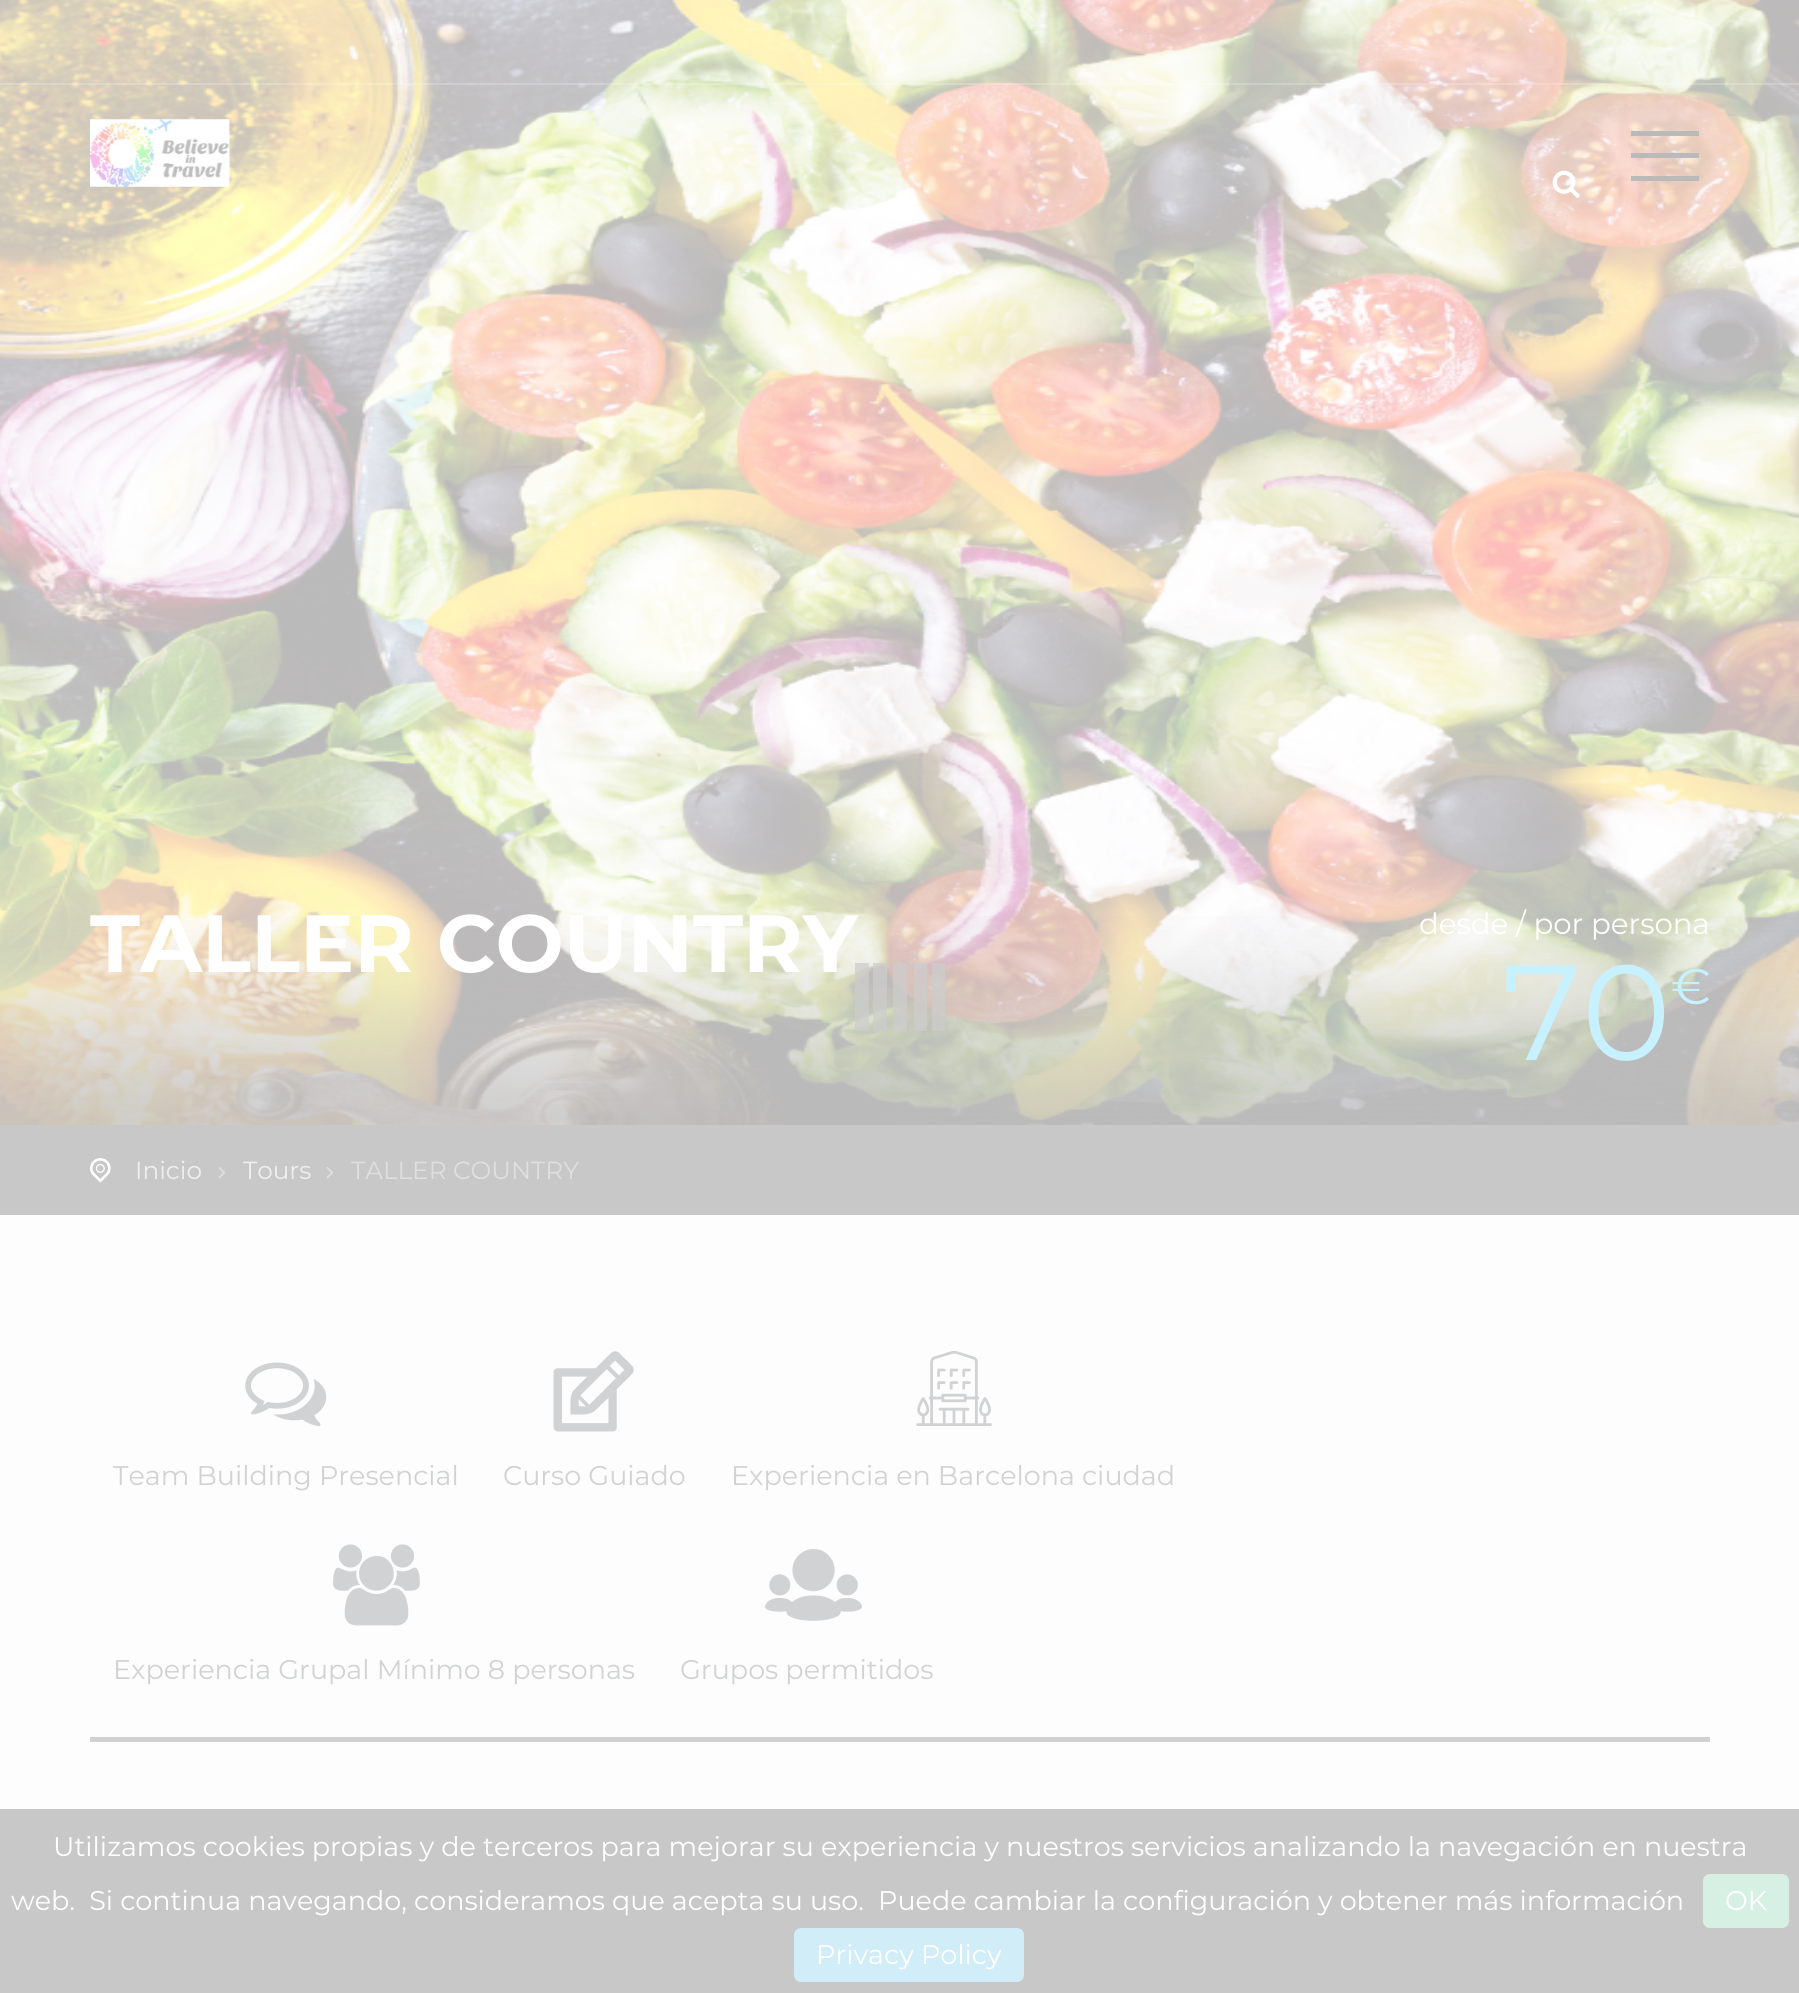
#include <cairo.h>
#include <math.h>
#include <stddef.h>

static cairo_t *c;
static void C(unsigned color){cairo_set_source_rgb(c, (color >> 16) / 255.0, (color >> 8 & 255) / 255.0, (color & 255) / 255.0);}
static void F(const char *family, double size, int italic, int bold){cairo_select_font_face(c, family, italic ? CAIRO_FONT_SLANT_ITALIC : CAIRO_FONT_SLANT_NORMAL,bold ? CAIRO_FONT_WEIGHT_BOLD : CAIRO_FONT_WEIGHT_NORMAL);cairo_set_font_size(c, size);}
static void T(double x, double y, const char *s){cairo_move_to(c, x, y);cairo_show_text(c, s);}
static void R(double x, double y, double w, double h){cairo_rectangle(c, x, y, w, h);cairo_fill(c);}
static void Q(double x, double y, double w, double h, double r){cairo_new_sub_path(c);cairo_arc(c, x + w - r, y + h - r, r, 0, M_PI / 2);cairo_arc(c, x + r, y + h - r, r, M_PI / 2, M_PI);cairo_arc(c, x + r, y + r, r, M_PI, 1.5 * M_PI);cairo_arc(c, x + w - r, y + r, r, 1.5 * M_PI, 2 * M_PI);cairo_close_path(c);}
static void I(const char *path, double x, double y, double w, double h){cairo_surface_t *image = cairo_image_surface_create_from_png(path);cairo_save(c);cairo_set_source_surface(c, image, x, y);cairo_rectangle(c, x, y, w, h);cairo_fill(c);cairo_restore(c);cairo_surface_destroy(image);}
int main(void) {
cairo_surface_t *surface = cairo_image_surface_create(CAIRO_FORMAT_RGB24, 1799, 1993);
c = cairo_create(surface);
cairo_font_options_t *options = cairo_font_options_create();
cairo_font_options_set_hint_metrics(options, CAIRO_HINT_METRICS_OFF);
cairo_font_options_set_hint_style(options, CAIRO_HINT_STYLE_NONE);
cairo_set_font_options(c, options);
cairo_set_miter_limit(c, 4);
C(0xfdfdfd);
cairo_paint(c);
I("1.png",0,0,1799,1125);
cairo_set_source_rgba(c,1,1,1,0.2);
R(0,83,1799,2);
I("2.png",90,119,140,68);
C(0xbababa);
R(1631,153,68,5);
R(1631,131,68,5);
R(1631,176,68,5);
I("3.png",1552,170,28,28);
I("4.png",0,916,1799,209);
F("Montserrat",81,0,1);
C(0xffffff);
T(90,972,"TALLER COUNTRY");
F("Montserrat Thin",29.25,0,0);
T(1419,934,"desde / por persona");
F("Montserrat Thin",135,0,0);
C(0xc8f1ff);
T(1502,1060,"70");
F("Montserrat Thin",50,0,0);
T(1671,1004,"€");
cairo_set_source_rgba(c,0.8,0.8,0.8,0.73);
R(855,963,14,68);
R(873,963,14,68);
R(893,963,14,68);
R(914,963,13,68);
R(932,963,13,68);
C(0xc8c8c8);
R(0,1125,1799,90);
I("5.png",90,1158,21,25);
F("Montserrat Thin",24.75,0,0);
C(0xefefef);
T(135,1179,"Inicio");
I("6.png",218,1166,7,13);
T(243,1179,"Tours");
I("6.png",326,1166,7,13);
C(0xdfdfdf);
T(351,1179,"TALLER COUNTRY");
C(0xd1d1d1);
R(90,1737,1620,5);
I("7.png",245,1362,82,65);
F("Montserrat Thin",27,0,0);
C(0xd1d2d3);
T(113,1485,"Team Building Presencial");
I("8.png",553,1351,81,81);
T(503,1485,"Curso Guiado");
I("9.png",916,1350,76,76);
T(731,1485,"Experiencia en Barcelona ciudad");
I("10.png",333,1544,87,82);
T(113,1679,"Experiencia Grupal Mínimo 8 personas");
I("11.png",765,1549,97,72);
T(680,1679,"Grupos permitidos");
cairo_set_source_rgba(c,0.729,0.729,0.729,0.8);
R(0,1809,1799,184);
C(0xffffff);
T(53,1856,"Utilizamos cookies propias y de terceros para mejorar su experiencia y nuestros servicios analizando la navegación en nuestra");
T(11,1910,"web.  Si continua navegando, consideramos que acepta su uso.  Puede cambiar la configuración y obtener más información");
C(0xd6f1e3);
Q(1703,1874,86,54,7);
cairo_fill(c);
C(0xffffff);
T(1725,1910,"OK");
C(0xd0edf8);
Q(794,1928,230,54,7);
cairo_fill(c);
C(0xffffff);
T(816,1964,"Privacy Policy");
cairo_surface_write_to_png(surface, "o.png");
cairo_font_options_destroy(options);
cairo_destroy(c);
cairo_surface_destroy(surface);
return 0;
}
